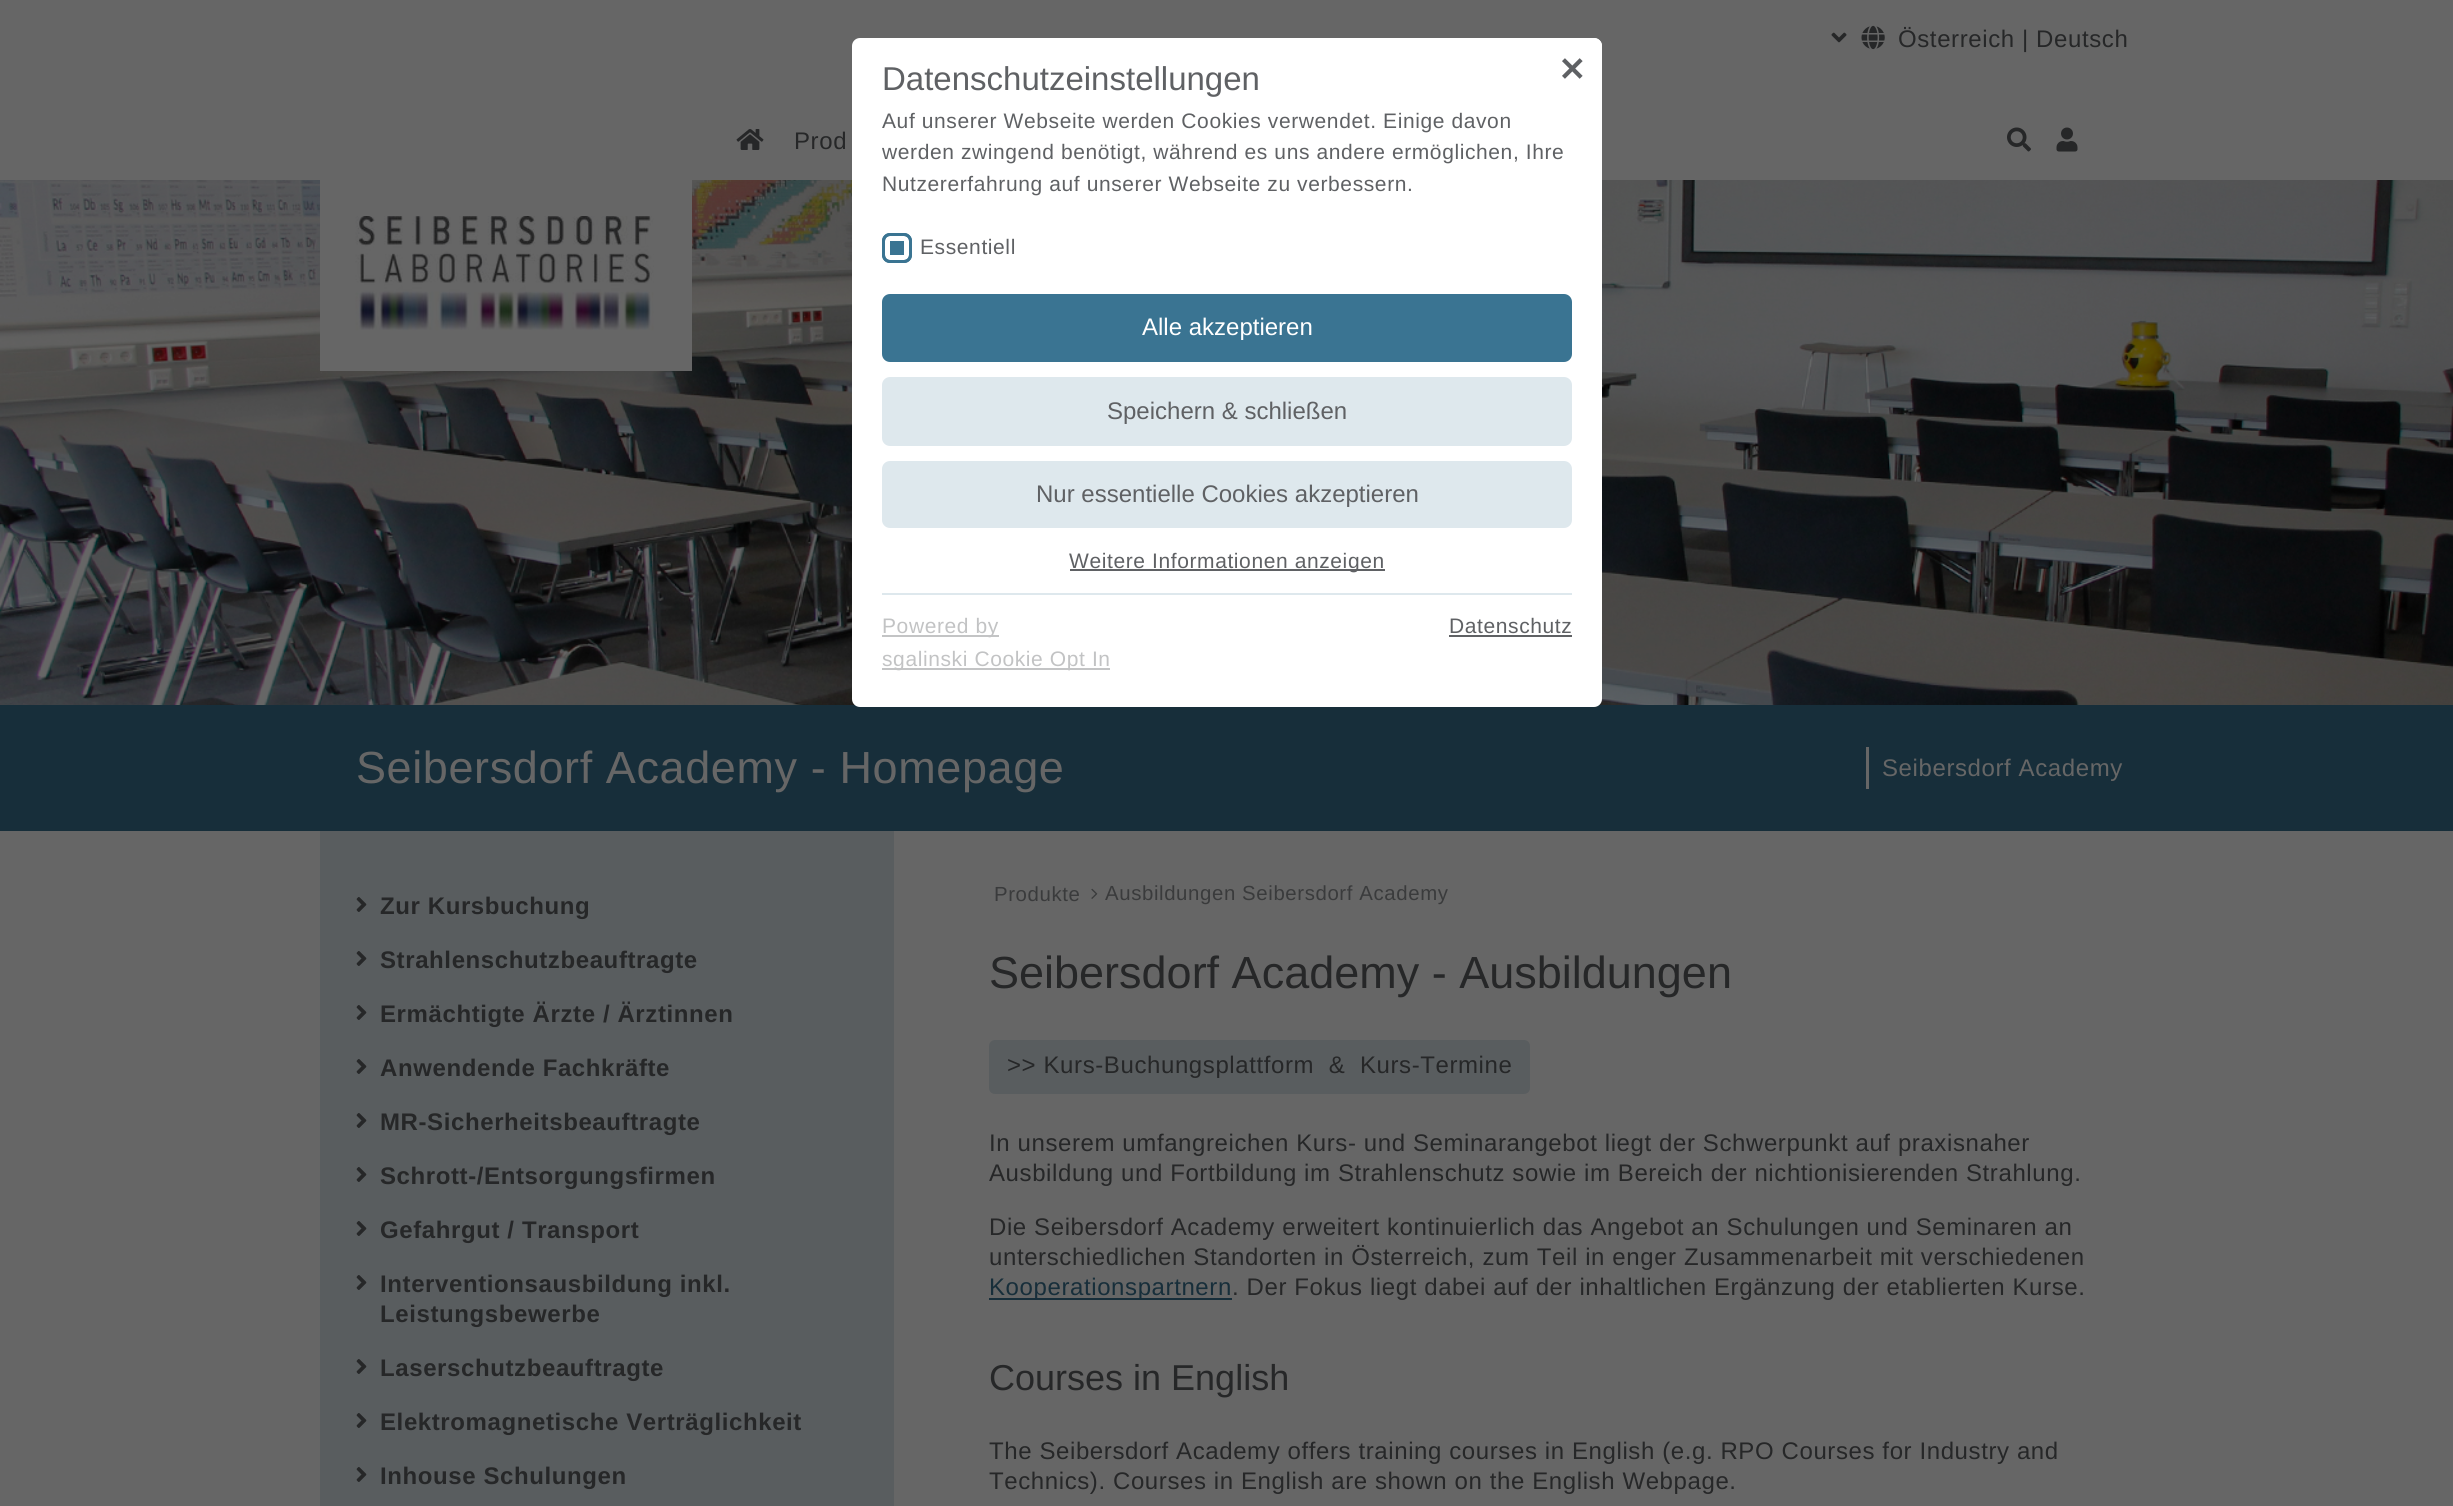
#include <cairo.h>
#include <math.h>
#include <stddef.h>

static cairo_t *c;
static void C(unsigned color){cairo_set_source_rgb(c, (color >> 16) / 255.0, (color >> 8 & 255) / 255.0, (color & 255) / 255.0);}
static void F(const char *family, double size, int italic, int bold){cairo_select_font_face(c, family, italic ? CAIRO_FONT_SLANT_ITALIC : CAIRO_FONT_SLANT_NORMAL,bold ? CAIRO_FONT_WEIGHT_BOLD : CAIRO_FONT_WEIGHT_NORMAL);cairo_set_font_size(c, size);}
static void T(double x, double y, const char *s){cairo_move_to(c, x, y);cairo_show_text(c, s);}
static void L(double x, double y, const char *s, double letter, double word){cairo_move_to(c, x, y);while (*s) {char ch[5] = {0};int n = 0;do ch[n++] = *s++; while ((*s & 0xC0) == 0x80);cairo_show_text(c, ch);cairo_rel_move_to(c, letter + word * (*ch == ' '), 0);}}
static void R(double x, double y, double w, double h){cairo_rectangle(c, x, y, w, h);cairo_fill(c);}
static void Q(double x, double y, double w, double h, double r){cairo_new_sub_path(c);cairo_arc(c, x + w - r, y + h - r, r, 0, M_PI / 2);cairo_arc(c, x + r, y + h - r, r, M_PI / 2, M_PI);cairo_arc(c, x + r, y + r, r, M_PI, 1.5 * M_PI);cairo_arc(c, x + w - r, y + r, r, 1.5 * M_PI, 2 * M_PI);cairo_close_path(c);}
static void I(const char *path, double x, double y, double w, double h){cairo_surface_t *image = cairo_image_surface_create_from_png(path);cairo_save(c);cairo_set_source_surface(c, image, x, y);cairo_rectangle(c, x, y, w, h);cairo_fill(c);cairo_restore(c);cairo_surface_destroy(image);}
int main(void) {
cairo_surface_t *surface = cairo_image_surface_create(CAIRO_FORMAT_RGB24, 2453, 1506);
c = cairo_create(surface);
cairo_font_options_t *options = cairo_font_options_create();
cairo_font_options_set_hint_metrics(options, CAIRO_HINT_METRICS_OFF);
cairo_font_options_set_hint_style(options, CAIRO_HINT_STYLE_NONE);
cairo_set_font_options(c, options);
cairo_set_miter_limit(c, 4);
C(0x666666);
cairo_paint(c);
I("1.png",1831,32,16,11);
I("2.png",1861,25,24,25);
F("Liberation Sans",24,0,0);
C(0x262728);
L(1898,47,"Österreich | Deutsch",.6,0);
I("3.png",736,129,28,21);
L(794,149,"Prod",.6,0);
I("4.png",2007,127,24,25);
I("5.png",2056,127,22,25);
I("7.png",0,180,2453,525);
C(0x666666);
R(320,180,372,191);
I("6.png",355,216,299,115);
C(0x172e3a);
R(0,705,2453,126);
F("Liberation Sans",45,0,0);
C(0x666666);
L(356,783,"Seibersdorf Academy - Homepage",.6,0);
R(1866,747,3,42);
F("Liberation Sans",24,0,0);
L(1882,776,"Seibersdorf Academy",.6,0);
C(0x595d5f);
R(320,831,574,675);
I("8.png",356,897,11,15);
F("Liberation Sans",24,0,1);
C(0x262728);
L(380,914,"Zur Kursbuchung",.6,0);
I("8.png",356,951,11,15);
L(380,968,"Strahlenschutzbeauftragte",.6,0);
I("8.png",356,1005,11,15);
L(380,1022,"Ermächtigte Ärzte / Ärztinnen",.6,0);
I("8.png",356,1059,11,15);
L(380,1076,"Anwendende Fachkräfte",.6,0);
I("8.png",356,1113,11,15);
L(380,1130,"MR-Sicherheitsbeauftragte",.6,0);
I("8.png",356,1167,11,15);
L(380,1184,"Schrott-/Entsorgungsfirmen",.6,0);
I("8.png",356,1221,11,15);
L(380,1238,"Gefahrgut / Transport",.6,0);
I("8.png",356,1275,11,15);
L(380,1292,"Interventionsausbildung inkl.",.6,0);
L(380,1322,"Leistungsbewerbe",.6,0);
I("8.png",356,1359,11,15);
L(380,1376,"Laserschutzbeauftragte",.6,0);
I("8.png",356,1413,11,15);
L(380,1430,"Elektromagnetische Verträglichkeit",.6,0);
I("8.png",356,1467,11,15);
L(380,1484,"Inhouse Schulungen",.6,0);
F("Liberation Sans",20.4,0,0);
C(0x3a3b3c);
L(994,901,"Produkte",.6,0);
I("9.png",1091,888,7,11);
L(1105,900,"Ausbildungen Seibersdorf Academy",.6,0);
F("Liberation Sans",45,0,0);
C(0x262728);
T(989,988,"Seibersdorf Academy - Ausbildungen");
C(0x595d5f);
Q(989,1040,541,54,6);
cairo_fill(c);
F("Liberation Sans",24,0,0);
C(0x262728);
L(1007,1073,">> Kurs-Buchungsplattform  &  Kurs-Termine",.6,0);
L(989,1151,"In unserem umfangreichen Kurs- und Seminarangebot liegt der Schwerpunkt auf praxisnaher",.6,0);
L(989,1181,"Ausbildung und Fortbildung im Strahlenschutz sowie im Bereich der nichtionisierenden Strahlung.",.6,0);
L(989,1235,"Die Seibersdorf Academy erweitert kontinuierlich das Angebot an Schulungen und Seminaren an",.6,0);
L(989,1265,"unterschiedlichen Standorten in Österreich, zum Teil in enger Zusammenarbeit mit verschiedenen",.6,0);
C(0x172e3a);
R(989,1298,243,2);
L(989,1295,"Kooperationspartnern",.6,0);
C(0x262728);
L(1232,1295,". Der Fokus liegt dabei auf der inhaltlichen Ergänzung der etablierten Kurse.",.6,0);
F("Liberation Sans",36,0,0);
T(989,1390,"Courses in English");
F("Liberation Sans",24,0,0);
L(989,1459,"The Seibersdorf Academy offers training courses in English (e.g. RPO Courses for Industry and",.6,0);
L(989,1489,"Technics). Courses in English are shown on the English Webpage.",.6,0);
C(0xffffff);
Q(852,38,750,669,8);
cairo_fill(c);
F("Liberation Sans",33,0,0);
C(0x5f6164);
T(882,90,"Datenschutzeinstellungen");
C(0xffffff);
cairo_new_path(c);
cairo_move_to(c,1542,38);
cairo_line_to(c,1594,38);
cairo_curve_to(c,1598.5,38,1602,41.5,1602,46);
cairo_line_to(c,1602,102);
cairo_line_to(c,1542,102);
cairo_close_path(c);
cairo_fill(c);
F("DejaVu Sans",33,0,1);
C(0x5f6164);
T(1558,81,"✕");
F("Liberation Sans",21,0,0);
L(882,128,"Auf unserer Webseite werden Cookies verwendet. Einige davon",.6,0);
L(882,159,"werden zwingend benötigt, während es uns andere ermöglichen, Ihre",.6,0);
L(882,191,"Nutzererfahrung auf unserer Webseite zu verbessern.",.6,0);
C(0x3a7492);
Q(882,233,30,30,8);
cairo_fill(c);
Q(887.5,238.5,19,19,2.5);
C(0xffffff);
cairo_set_line_width(c,5);
cairo_stroke(c);
Q(883.5,234.5,27,27,6.5);
C(0x3a7492);
cairo_set_line_width(c,3);
cairo_stroke(c);
C(0x5f6164);
L(920,254,"Essentiell",.6,0);
C(0x3a7492);
Q(882,294,690,68,8);
cairo_fill(c);
F("Liberation Sans",24,0,0);
C(0xffffff);
T(1142,335,"Alle akzeptieren");
C(0xdee8ed);
Q(882,377,690,69,8);
cairo_fill(c);
C(0x5f6164);
T(1107,419,"Speichern & schließen");
C(0xdee8ed);
Q(882,461,690,67,8);
cairo_fill(c);
C(0x5f6164);
T(1036,502,"Nur essentielle Cookies akzeptieren");
R(1070,569,315,2);
F("Liberation Sans",21,0,0);
L(1069,568,"Weitere Informationen anzeigen",.6,0);
C(0xdee8ed);
R(882,593,690,2);
C(0xc3c4c5);
R(882,635,117,2);
C(0xc2c3c4);
L(882,633,"Powered by",.6,0);
C(0xc3c4c5);
R(882,668,228,2);
C(0xc2c3c4);
L(882,666,"sgalinski Cookie Opt In",.6,0);
C(0x5f6164);
L(1449,633,"Datenschutz",.6,0);
R(1449,635,123,2);
cairo_surface_write_to_png(surface, "o.png");
cairo_font_options_destroy(options);
cairo_destroy(c);
cairo_surface_destroy(surface);
return 0;
}
